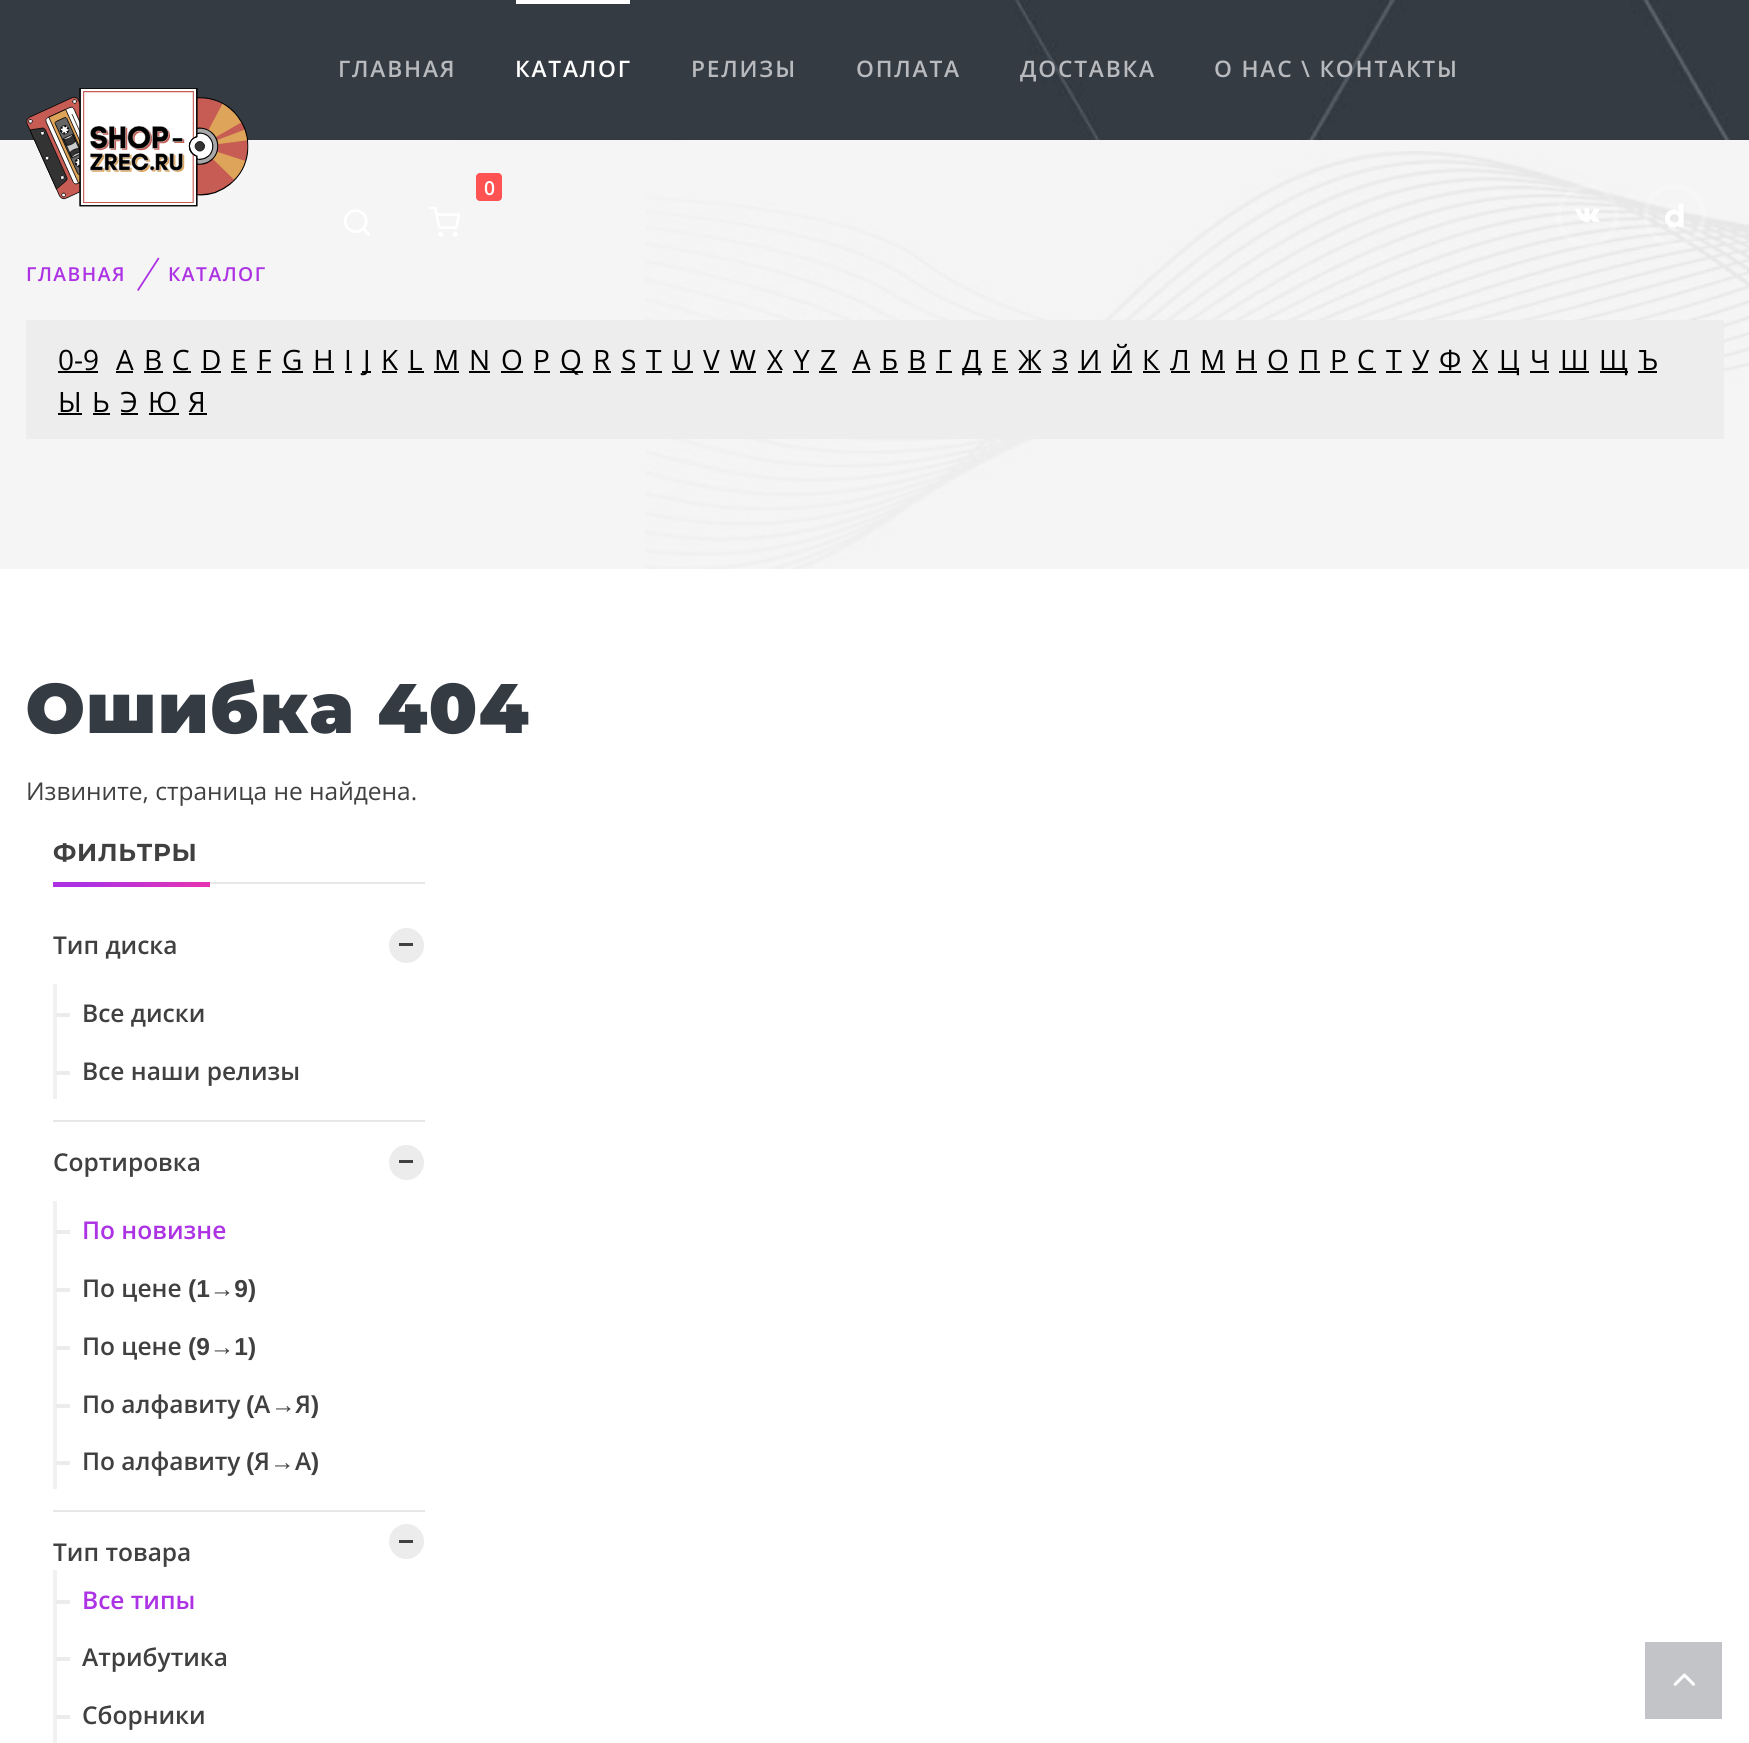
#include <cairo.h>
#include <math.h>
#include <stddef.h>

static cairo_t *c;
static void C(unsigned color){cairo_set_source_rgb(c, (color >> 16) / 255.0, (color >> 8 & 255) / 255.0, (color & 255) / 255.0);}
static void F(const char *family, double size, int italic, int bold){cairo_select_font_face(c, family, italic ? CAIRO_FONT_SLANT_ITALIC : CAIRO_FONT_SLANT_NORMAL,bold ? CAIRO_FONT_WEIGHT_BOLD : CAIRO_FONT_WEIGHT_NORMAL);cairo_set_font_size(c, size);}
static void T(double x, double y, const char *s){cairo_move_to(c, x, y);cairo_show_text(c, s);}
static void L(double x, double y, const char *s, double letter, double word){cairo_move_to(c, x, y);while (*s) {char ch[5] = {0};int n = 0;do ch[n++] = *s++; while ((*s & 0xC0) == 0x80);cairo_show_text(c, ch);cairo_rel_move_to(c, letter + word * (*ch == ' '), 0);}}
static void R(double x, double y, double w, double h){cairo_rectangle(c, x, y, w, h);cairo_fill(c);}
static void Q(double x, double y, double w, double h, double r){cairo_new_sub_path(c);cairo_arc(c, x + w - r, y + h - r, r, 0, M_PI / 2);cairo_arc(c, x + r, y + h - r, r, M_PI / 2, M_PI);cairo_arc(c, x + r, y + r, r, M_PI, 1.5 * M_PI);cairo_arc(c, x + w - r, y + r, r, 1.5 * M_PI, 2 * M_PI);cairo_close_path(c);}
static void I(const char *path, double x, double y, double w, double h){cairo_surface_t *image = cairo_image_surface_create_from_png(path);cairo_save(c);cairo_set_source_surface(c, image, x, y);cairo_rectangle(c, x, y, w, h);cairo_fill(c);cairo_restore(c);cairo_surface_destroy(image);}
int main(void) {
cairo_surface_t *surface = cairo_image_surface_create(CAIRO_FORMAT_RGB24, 1749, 1743);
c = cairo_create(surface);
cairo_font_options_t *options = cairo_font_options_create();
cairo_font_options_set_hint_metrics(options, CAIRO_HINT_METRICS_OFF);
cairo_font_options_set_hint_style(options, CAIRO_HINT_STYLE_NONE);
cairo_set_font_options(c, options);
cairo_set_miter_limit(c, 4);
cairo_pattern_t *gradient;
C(0xffffff);
cairo_paint(c);
I("1.png",0,0,1749,140);
C(0xf5f5f5);
R(0,140,1749,429);
I("2.png",26,88,223,119);
F("Open Sans SemiBold",22.75,0,0);
C(0xb8babd);
L(338,77,"ГЛАВНАЯ",1.8,0);
C(0xffffff);
R(516,0,114,4);
L(515,77,"КАТАЛОГ",1.8,0);
C(0xb8babd);
L(691,77,"РЕЛИЗЫ",1.8,0);
L(856,77,"ОПЛАТА",1.8,0);
L(1020,77,"ДОСТАВКА",1.8,0);
L(1214,77,"О НАС \\ КОНТАКТЫ",1.8,0);
C(0xff5252);
Q(476,173,26,28,4);
cairo_fill(c);
F("Open Sans SemiBold",19.25,0,0);
C(0xffffff);
T(484,195,"0");
I("3.png",429,207,31,30);
I("4.png",344,209,26,27);
I("7.png",645,151,1104,418);
cairo_arc(c,1587.5,215.5,29,0,2 * M_PI);
cairo_set_source_rgba(c,1,1,1,0.18);
cairo_set_line_width(c,5);
cairo_stroke(c);
I("5.png",1575,208,25,14);
cairo_arc(c,1674.5,215.5,29,0,2 * M_PI);
cairo_stroke(c);
I("6.png",1665,203,19,25);
C(0xac32e4);
L(26,281,"ГЛАВНАЯ",1.5,0);
cairo_new_path(c);
cairo_move_to(c,158,257.5);
cairo_line_to(c,159.5,258.5);
cairo_line_to(c,138.5,291);
cairo_line_to(c,137,290);
cairo_close_path(c);
cairo_fill(c);
L(168,281,"КАТАЛОГ",1.5,0);
C(0xededed);
R(26,320,1698,119);
F("Open Sans",28,0,0);
C(0x000000);
T(58,370,"0-9");
R(58,371,40,2);
T(116,370,"A");
R(116,371,17,2);
T(144,370,"B");
R(144,371,19,2);
T(172,370,"C");
R(173,371,18,2);
T(201,370,"D");
R(201,371,20,2);
T(231,370,"E");
R(231,371,16,2);
T(257,370,"F");
R(257,371,14,2);
T(282,370,"G");
R(282,371,21,2);
T(313,370,"H");
R(313,371,21,2);
T(344,370,"I");
R(345,371,7,2);
R(362,371,9,2);
T(363,370,"J");
T(381,370,"K");
R(382,371,15,2);
T(408,370,"L");
R(408,371,16,2);
T(434,370,"M");
R(434,371,25,2);
T(469,370,"N");
R(469,371,21,2);
T(501,370,"O");
R(501,371,22,2);
T(533,370,"P");
R(534,371,16,2);
R(560,371,23,2);
T(560,370,"Q");
T(593,370,"R");
R(593,371,18,2);
T(621,370,"S");
R(621,371,14,2);
T(646,370,"T");
R(646,371,16,2);
T(672,370,"U");
R(672,371,21,2);
T(703,370,"V");
R(704,371,15,2);
T(730,370,"W");
R(730,371,26,2);
T(767,370,"X");
R(767,371,15,2);
T(794,370,"Y");
R(793,371,16,2);
T(820,370,"Z");
R(819,371,18,2);
T(853,370,"А");
R(852,371,18,2);
T(881,370,"Б");
R(880,371,18,2);
T(908,370,"В");
R(908,371,18,2);
T(937,370,"Г");
R(936,371,16,2);
R(963,371,19,2);
T(962,370,"Д");
T(992,370,"Е");
R(992,371,16,2);
T(1018,370,"Ж");
R(1019,371,22,2);
T(1052,370,"З");
R(1052,371,16,2);
T(1079,370,"И");
R(1078,371,23,2);
T(1111,370,"Й");
R(1111,371,21,2);
T(1142,370,"К");
R(1143,371,17,2);
T(1170,370,"Л");
R(1171,371,19,2);
T(1200,370,"М");
R(1201,371,24,2);
T(1236,370,"Н");
R(1236,371,21,2);
T(1267,370,"О");
R(1267,371,21,2);
T(1299,370,"П");
R(1299,371,21,2);
T(1330,370,"Р");
R(1330,371,18,2);
T(1357,370,"С");
R(1358,371,18,2);
T(1386,370,"Т");
R(1386,371,16,2);
T(1412,370,"У");
R(1412,371,16,2);
T(1439,370,"Ф");
R(1439,371,22,2);
T(1472,370,"Х");
R(1472,371,16,2);
R(1498,371,21,2);
T(1499,370,"Ц");
T(1530,370,"Ч");
R(1530,371,19,2);
T(1560,370,"Ш");
R(1559,371,30,2);
R(1600,371,28,2);
T(1599,370,"Щ");
T(1639,370,"Ъ");
R(1638,371,19,2);
T(58,412,"Ы");
R(58,413,24,2);
T(92,412,"Ь");
R(93,413,17,2);
T(120,412,"Э");
R(121,413,17,2);
T(148,412,"Ю");
R(149,413,30,2);
T(188,412,"Я");
R(189,413,18,2);
F("Montserrat Black",70,0,0);
C(0x343b43);
L(26,733,"Ошибка 404",1.5,0);
F("Open Sans",24.5,0,0);
C(0x404040);
T(26,800,"Извините, страница не найдена.");
C(0xe7e7e7);
R(210,882,215,2);
F("Montserrat",24.5,0,1);
C(0x404040);
L(53,861,"ФИЛЬТРЫ",.75,0);
gradient = cairo_pattern_create_linear(53,885,210,885);
cairo_pattern_add_color_stop_rgba(gradient,0,0.675,0.196,0.894,1);
cairo_pattern_add_color_stop_rgba(gradient,.2,0.675,0.196,0.894,1);
cairo_pattern_add_color_stop_rgba(gradient,1,0.91,0.2,0.69,1);
cairo_set_source(c,gradient);
cairo_pattern_destroy(gradient);
R(53,882,157,5);
C(0xe7e7e7);
R(53,1120,372,2);
F("Open Sans SemiBold",24.5,0,0);
C(0x404040);
T(53,954,"Тип диска");
C(0xececec);
cairo_new_path(c);
cairo_arc(c,406.5,945.5,17.5,0,2 * M_PI);
cairo_fill(c);
C(0x404040);
R(399,943,14,3);
C(0xf1f1f1);
R(53,984,4,115);
C(0xececec);
R(56,1013,14,4);
C(0x404040);
T(82,1022,"Все диски");
C(0xececec);
R(56,1071,14,4);
C(0x404040);
T(82,1080,"Все наши релизы");
C(0xe7e7e7);
R(53,1510,372,2);
C(0x404040);
T(53,1171,"Сортировка");
C(0xececec);
cairo_new_path(c);
cairo_arc(c,406.5,1162.5,17.5,0,2 * M_PI);
cairo_fill(c);
C(0x404040);
R(399,1160,14,3);
C(0xf1f1f1);
R(53,1201,4,288);
C(0xececec);
R(56,1230,14,4);
C(0xac32e4);
T(82,1239,"По новизне");
C(0xececec);
R(56,1288,14,4);
C(0x404040);
T(82,1297,"По цене");
F("Liberation Sans",24.5,0,1);
T(188,1297,"(1→9)");
C(0xececec);
R(56,1346,14,4);
F("Open Sans SemiBold",24.5,0,0);
C(0x404040);
T(82,1355,"По цене");
F("Liberation Sans",24.5,0,1);
T(188,1355,"(9→1)");
C(0xececec);
R(56,1404,14,4);
F("Open Sans SemiBold",24.5,0,0);
C(0x404040);
T(82,1413,"По алфавиту");
F("Liberation Sans",24.5,0,1);
T(246,1413,"(");
F("Open Sans SemiBold",24.5,0,0);
T(254,1413,"А");
F("Liberation Sans",24.5,0,1);
T(271,1413,"→");
F("Open Sans SemiBold",24.5,0,0);
T(295,1413,"Я");
F("Liberation Sans",24.5,0,1);
T(311,1413,")");
C(0xececec);
R(56,1461,14,4);
F("Open Sans SemiBold",24.5,0,0);
C(0x404040);
T(82,1470,"По алфавиту");
F("Liberation Sans",24.5,0,1);
T(246,1470,"(");
F("Open Sans SemiBold",24.5,0,0);
T(254,1470,"Я");
F("Liberation Sans",24.5,0,1);
T(270,1470,"→");
F("Open Sans SemiBold",24.5,0,0);
T(295,1470,"А");
F("Liberation Sans",24.5,0,1);
T(311,1470,")");
F("Open Sans SemiBold",24.5,0,0);
T(53,1561,"Тип товара");
C(0xececec);
cairo_new_path(c);
cairo_arc(c,406.5,1541.5,17.5,0,2 * M_PI);
cairo_fill(c);
C(0x404040);
R(399,1540,14,3);
C(0xf1f1f1);
R(53,1570,4,173);
C(0xececec);
R(56,1600,14,4);
C(0xac32e4);
T(82,1609,"Все типы");
C(0xececec);
R(56,1657,14,4);
C(0x404040);
T(82,1666,"Атрибутика");
C(0xececec);
R(56,1715,14,4);
C(0x404040);
T(82,1724,"Сборники");
C(0xc2c4c7);
R(1645,1642,77,77);
I("8.png",1673,1673,22,13);
cairo_surface_write_to_png(surface, "o.png");
cairo_font_options_destroy(options);
cairo_destroy(c);
cairo_surface_destroy(surface);
return 0;
}
